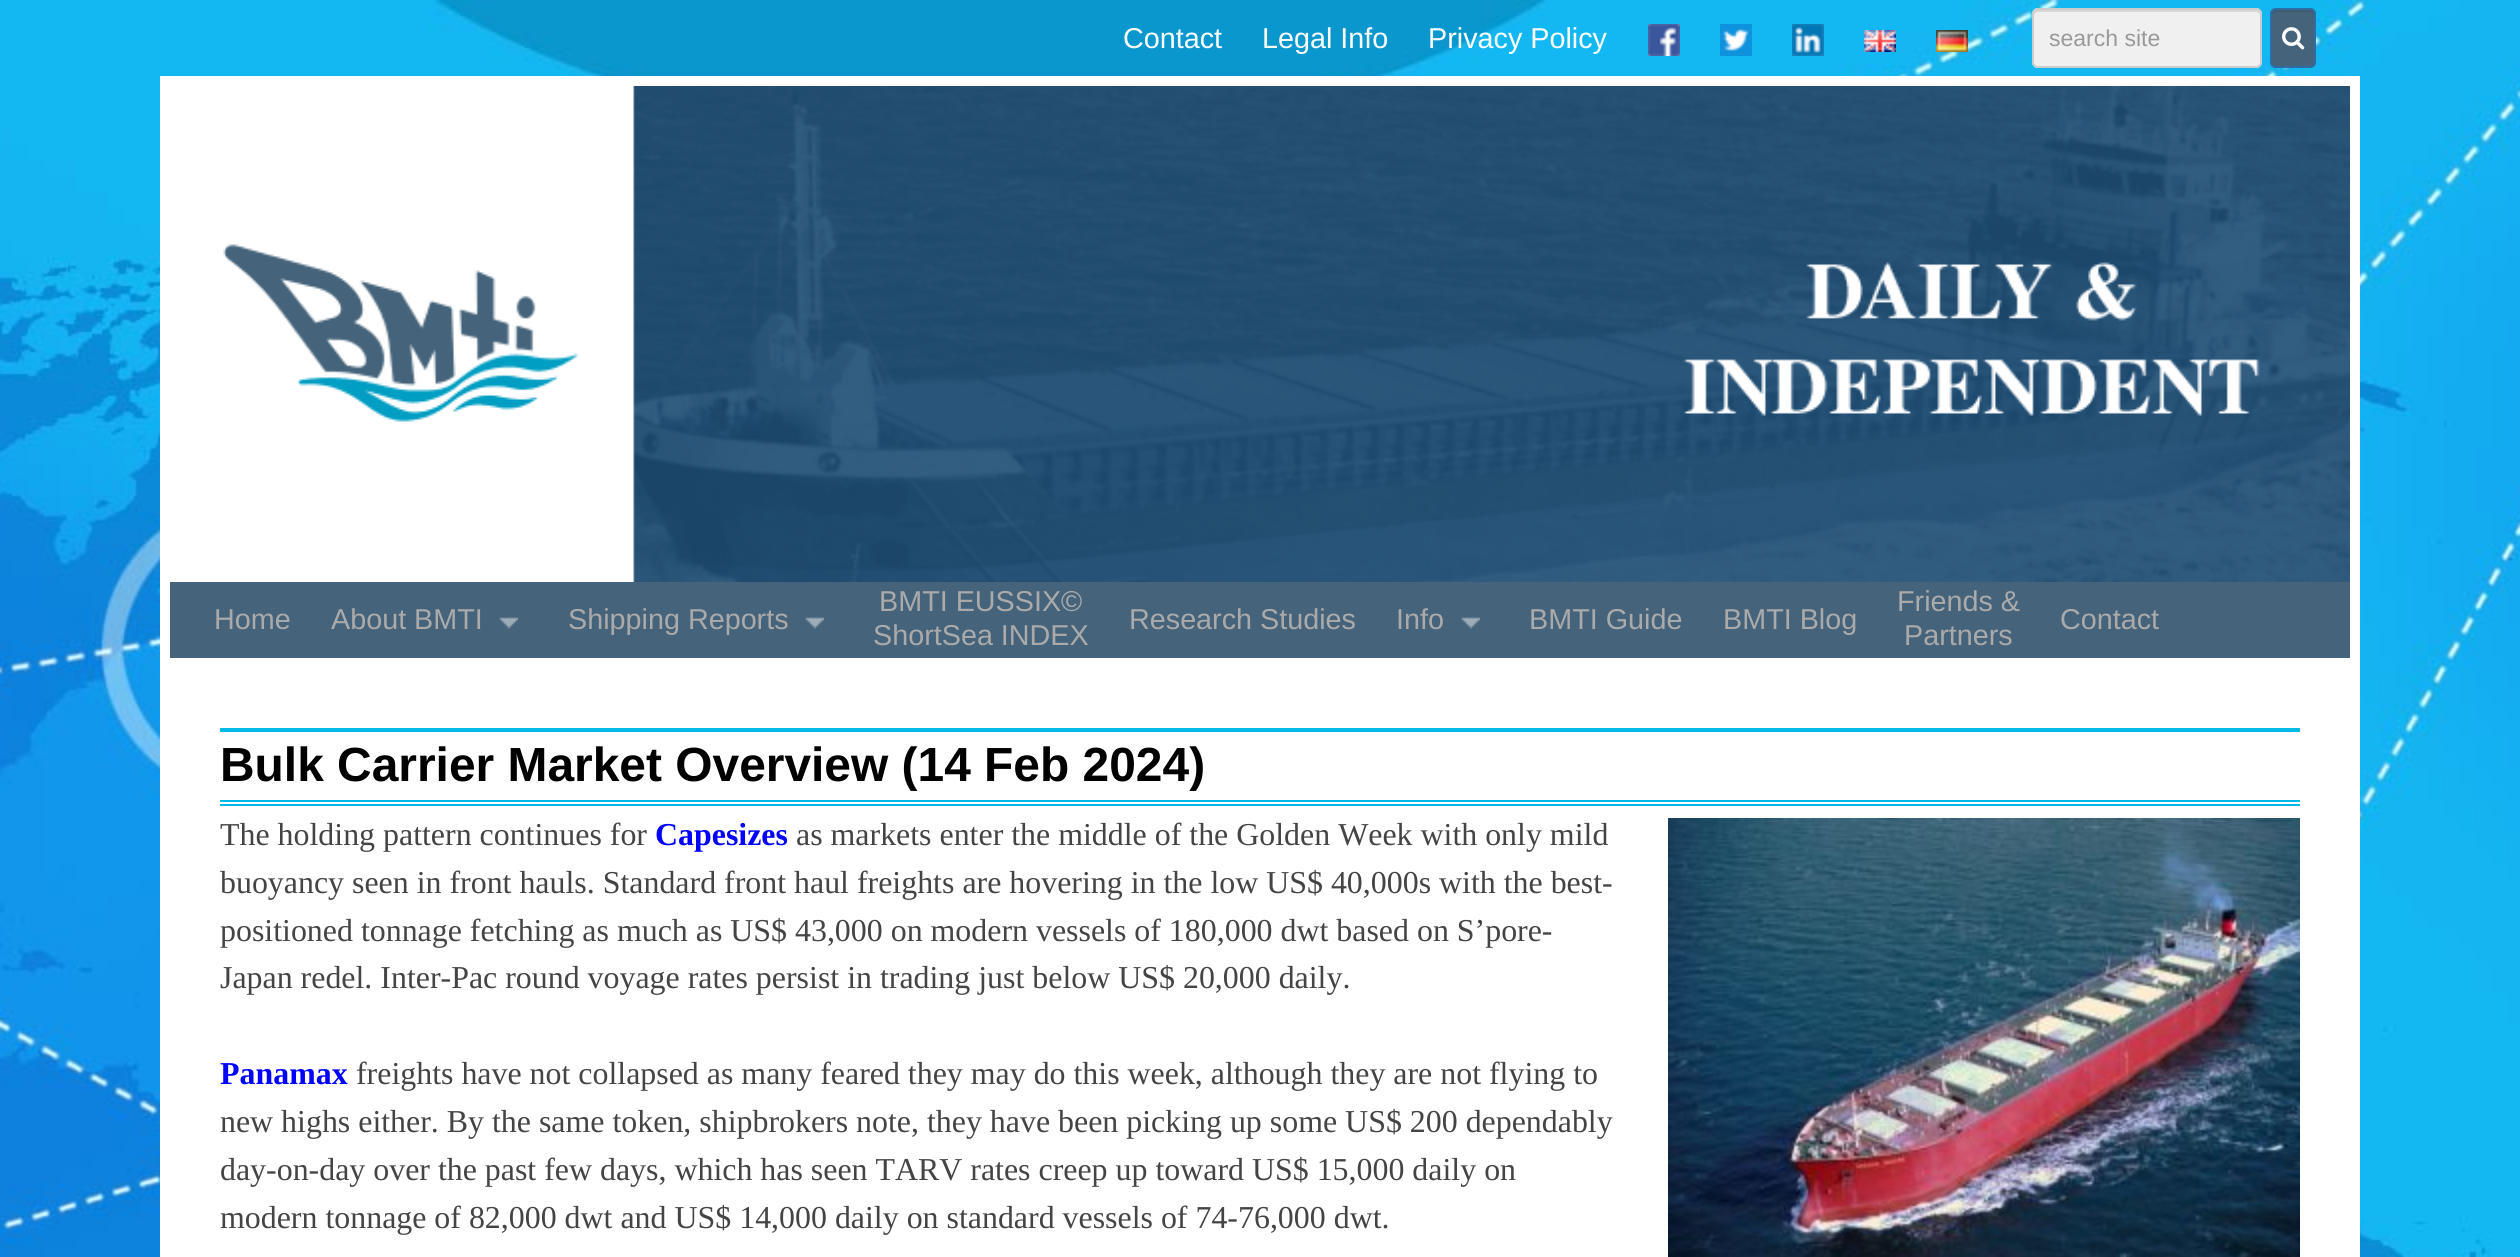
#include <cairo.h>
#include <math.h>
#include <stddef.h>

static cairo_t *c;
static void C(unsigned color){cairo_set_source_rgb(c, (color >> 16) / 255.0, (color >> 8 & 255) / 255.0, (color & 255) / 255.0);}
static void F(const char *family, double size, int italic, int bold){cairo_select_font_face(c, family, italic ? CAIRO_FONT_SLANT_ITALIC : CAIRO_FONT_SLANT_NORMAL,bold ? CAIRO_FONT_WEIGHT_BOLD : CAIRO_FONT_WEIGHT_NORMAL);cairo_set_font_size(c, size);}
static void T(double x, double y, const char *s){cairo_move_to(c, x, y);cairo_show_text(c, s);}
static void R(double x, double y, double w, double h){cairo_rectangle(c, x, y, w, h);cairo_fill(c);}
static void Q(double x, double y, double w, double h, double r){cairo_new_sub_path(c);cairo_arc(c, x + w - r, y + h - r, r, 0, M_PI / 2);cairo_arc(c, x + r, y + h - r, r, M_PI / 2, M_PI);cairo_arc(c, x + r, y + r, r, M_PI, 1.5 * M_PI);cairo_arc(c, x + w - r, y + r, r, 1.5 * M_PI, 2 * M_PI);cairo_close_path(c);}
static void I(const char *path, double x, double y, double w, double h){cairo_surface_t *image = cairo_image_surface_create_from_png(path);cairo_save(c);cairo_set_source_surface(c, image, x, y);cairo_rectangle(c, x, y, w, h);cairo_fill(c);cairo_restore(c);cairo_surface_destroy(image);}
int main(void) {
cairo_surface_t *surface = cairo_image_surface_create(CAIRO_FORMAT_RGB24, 2520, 1257);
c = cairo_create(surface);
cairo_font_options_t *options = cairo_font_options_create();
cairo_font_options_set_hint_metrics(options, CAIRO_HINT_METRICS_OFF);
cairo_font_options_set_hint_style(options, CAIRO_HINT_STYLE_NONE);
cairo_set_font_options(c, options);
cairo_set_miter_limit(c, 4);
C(0xffffff);
cairo_paint(c);
I("1.png",0,0,2520,1257);
F("Liberation Sans",28.75,0,0);
C(0xffffff);
T(1123,48,"Contact");
T(1262,48,"Legal Info");
T(1428,48,"Privacy Policy");
I("2.png",1648,24,32,32);
I("3.png",1720,24,32,32);
I("4.png",1792,24,32,32);
I("5.png",1864,30,32,22);
I("6.png",1936,30,32,22);
C(0xf0f0f0);
Q(2032,8,230,60,6);
cairo_fill(c);
C(0xd8d8d8);
cairo_new_path(c);
cairo_move_to(c,2038,12);
cairo_line_to(c,2256,12);
cairo_curve_to(c,2258,12,2260,14,2260,16);
cairo_curve_to(c,2260,13,2260,11,2257,10);
cairo_line_to(c,2038,10);
cairo_curve_to(c,2034,10,2034,13,2034,16);
cairo_curve_to(c,2034,14,2036,12,2038,12);
cairo_close_path(c);
cairo_fill(c);
Q(2033,9,228,58,5);
C(0xcccccc);
cairo_stroke(c);
F("Liberation Sans",23,0,0);
C(0x999999);
T(2049,46,"search site");
C(0x45637a);
Q(2270,8,46,60,6);
cairo_fill(c);
C(0x405c71);
cairo_new_path(c);
cairo_move_to(c,2276,12);
cairo_line_to(c,2310,12);
cairo_curve_to(c,2312,12,2314,14,2314,16);
cairo_curve_to(c,2314,9,2311,10,2304,10);
cairo_line_to(c,2282,10);
cairo_curve_to(c,2275,10,2272,9,2272,16);
cairo_curve_to(c,2272,14,2274,12,2276,12);
cairo_close_path(c);
cairo_fill(c);
Q(2271,9,44,58,5);
C(0x2e6da4);
cairo_stroke(c);
I("7.png",2282,27,23,23);
C(0xffffff);
R(160,76,2200,1181);
I("8.png",223,86,2127,496);
C(0x45637a);
R(170,582,2180,76);
F("Liberation Sans",28.75,0,0);
C(0xaaaaaa);
T(214,629,"Home");
T(331,629,"About BMTI");
I("9.png",499,617,19,12);
T(568,629,"Shipping Reports");
I("9.png",805,617,19,12);
T(879,611,"BMTI EUSSIX©");
T(873,645,"ShortSea INDEX");
T(1129,629,"Research Studies");
T(1396,629,"Info");
I("9.png",1461,617,19,12);
T(1529,629,"BMTI Guide");
T(1723,629,"BMTI Blog");
T(1897,611,"Friends &");
T(1904,645,"Partners");
T(2060,629,"Contact");
C(0x00b9e4);
R(220,728,2080,4);
R(220,800,2080,2);
R(220,804,2080,2);
F("Liberation Sans",47.9,0,1);
C(0x000000);
T(220,781,"Bulk Carrier Market Overview (14 Feb 2024)");
F("Liberation Serif",31.9,0,0);
C(0x444444);
T(220,845,"The holding pattern continues for");
F("Liberation Serif",31.9,0,1);
C(0x0000ff);
T(655,845,"Capesizes");
F("Liberation Serif",31.9,0,0);
C(0x444444);
T(796,845,"as markets enter the middle of the Golden Week with only mild");
I("10.png",1668,818,632,439);
T(220,893,"buoyancy seen in front hauls. Standard front haul freights are hovering in the low US$ 40,000s with the best-");
T(220,941,"positioned tonnage fetching as much as US$ 43,000 on modern vessels of 180,000 dwt based on S’pore-");
T(220,988,"Japan redel. Inter-Pac round voyage rates persist in trading just below US$ 20,000 daily.");
F("Liberation Serif",31.9,0,1);
C(0x0000ff);
T(220,1084,"Panamax");
F("Liberation Serif",31.9,0,0);
C(0x444444);
T(356,1084,"freights have not collapsed as many feared they may do this week, although they are not flying to");
T(220,1132,"new highs either. By the same token, shipbrokers note, they have been picking up some US$ 200 dependably");
T(220,1180,"day-on-day over the past few days, which has seen TARV rates creep up toward US$ 15,000 daily on");
T(220,1228,"modern tonnage of 82,000 dwt and US$ 14,000 daily on standard vessels of 74-76,000 dwt.");
cairo_surface_write_to_png(surface, "o.png");
cairo_font_options_destroy(options);
cairo_destroy(c);
cairo_surface_destroy(surface);
return 0;
}
